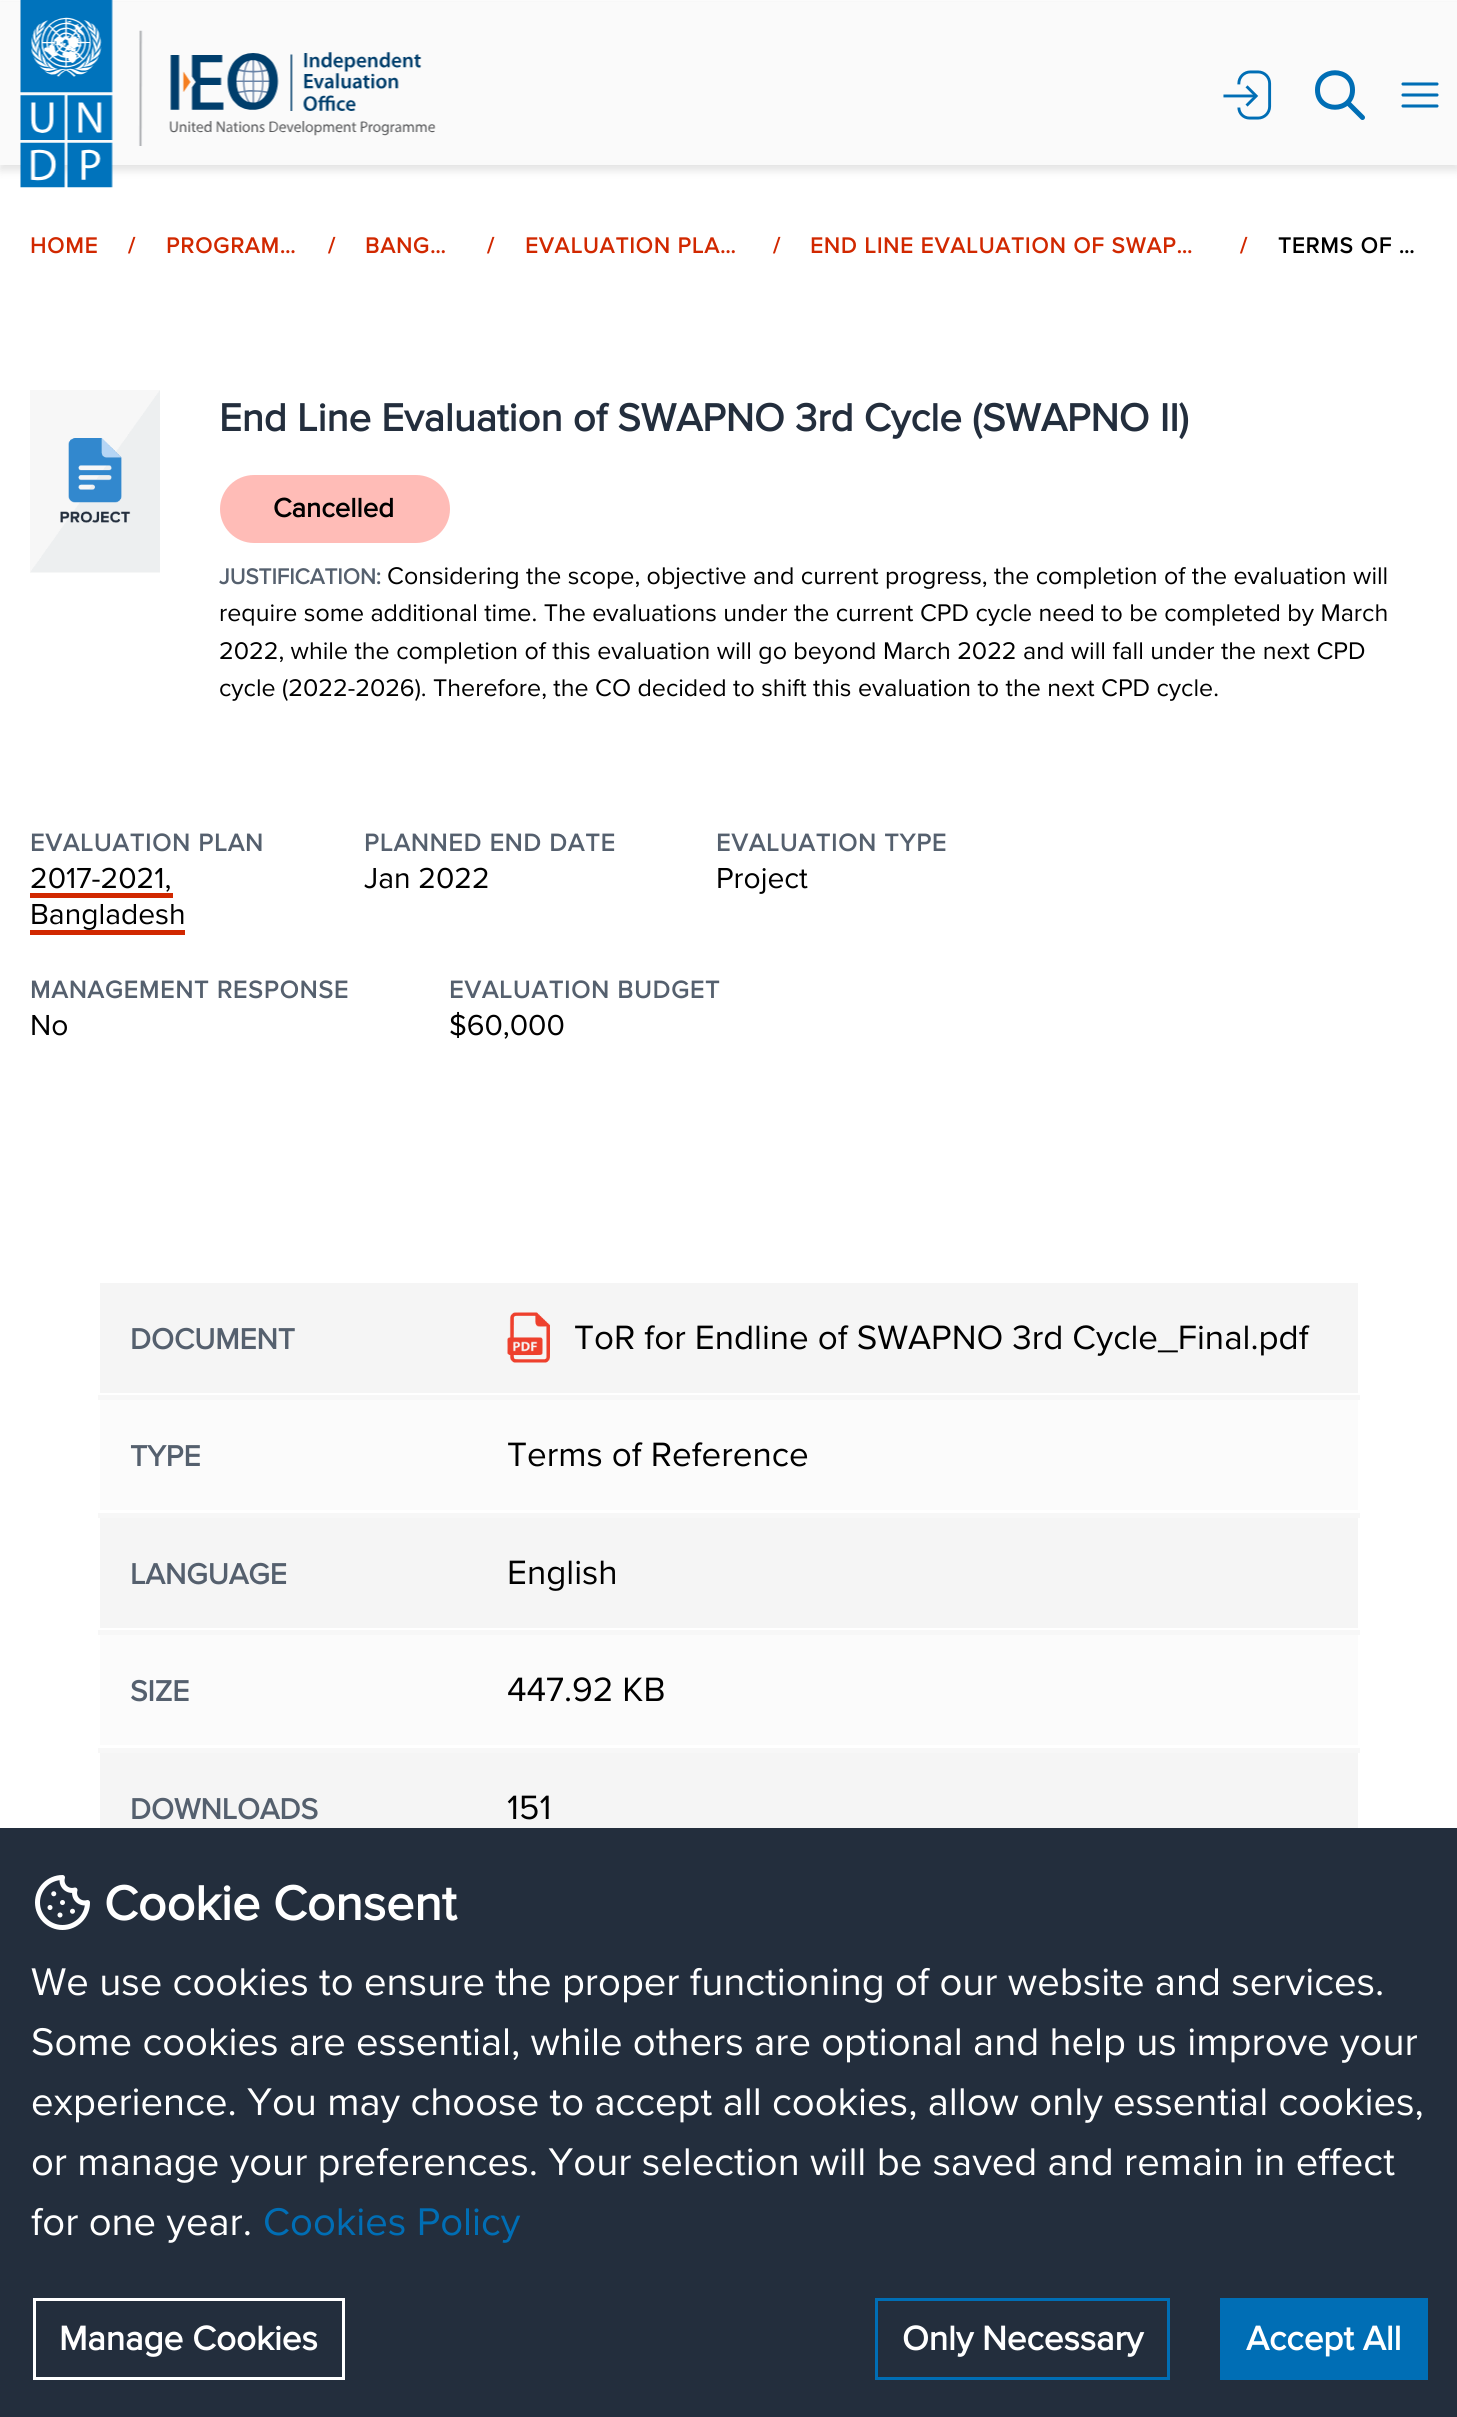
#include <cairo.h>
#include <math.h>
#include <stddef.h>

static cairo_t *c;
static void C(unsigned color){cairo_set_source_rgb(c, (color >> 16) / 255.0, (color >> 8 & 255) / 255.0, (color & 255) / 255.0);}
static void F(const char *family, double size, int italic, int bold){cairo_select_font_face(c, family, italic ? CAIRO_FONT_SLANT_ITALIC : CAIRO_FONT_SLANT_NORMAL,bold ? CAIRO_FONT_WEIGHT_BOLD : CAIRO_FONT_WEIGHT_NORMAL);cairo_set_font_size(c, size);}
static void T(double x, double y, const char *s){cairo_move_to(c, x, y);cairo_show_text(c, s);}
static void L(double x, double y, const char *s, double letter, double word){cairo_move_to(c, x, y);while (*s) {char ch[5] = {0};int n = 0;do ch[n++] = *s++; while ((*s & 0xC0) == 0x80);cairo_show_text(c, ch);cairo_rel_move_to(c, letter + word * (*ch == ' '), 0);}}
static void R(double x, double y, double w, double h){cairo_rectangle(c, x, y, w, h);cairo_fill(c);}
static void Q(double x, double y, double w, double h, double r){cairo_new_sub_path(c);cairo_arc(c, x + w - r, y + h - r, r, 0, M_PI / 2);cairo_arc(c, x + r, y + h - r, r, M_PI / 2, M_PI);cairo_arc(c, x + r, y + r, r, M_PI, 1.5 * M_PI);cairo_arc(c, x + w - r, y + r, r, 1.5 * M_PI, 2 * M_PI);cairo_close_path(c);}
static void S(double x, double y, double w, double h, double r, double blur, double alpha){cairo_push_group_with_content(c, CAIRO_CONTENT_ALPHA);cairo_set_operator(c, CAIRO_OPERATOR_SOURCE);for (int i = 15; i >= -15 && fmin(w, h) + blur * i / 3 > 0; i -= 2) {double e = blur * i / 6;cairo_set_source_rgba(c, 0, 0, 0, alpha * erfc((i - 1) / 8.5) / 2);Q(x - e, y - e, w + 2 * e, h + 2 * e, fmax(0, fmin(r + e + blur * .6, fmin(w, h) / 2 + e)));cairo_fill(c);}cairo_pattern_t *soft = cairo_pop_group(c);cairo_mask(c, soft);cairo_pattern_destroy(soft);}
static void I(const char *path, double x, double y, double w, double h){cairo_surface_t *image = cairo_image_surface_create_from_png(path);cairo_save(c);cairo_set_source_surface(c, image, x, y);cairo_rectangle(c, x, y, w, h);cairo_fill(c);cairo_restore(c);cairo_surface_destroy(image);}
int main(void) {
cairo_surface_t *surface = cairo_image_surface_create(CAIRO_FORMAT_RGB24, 1457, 2417);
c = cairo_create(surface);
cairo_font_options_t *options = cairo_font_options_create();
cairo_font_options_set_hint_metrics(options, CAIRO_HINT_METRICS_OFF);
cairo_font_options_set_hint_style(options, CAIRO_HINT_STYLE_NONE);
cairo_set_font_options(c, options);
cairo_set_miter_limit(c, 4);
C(0xffffff);
cairo_paint(c);
C(0x000000);
S(0,5,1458,165,0,5,.12);
C(0xfafafa);
R(0,2,1457,163);
I("1.png",20,0,416,188);
I("2.png",1223,70,49,50);
cairo_new_path(c);
cairo_move_to(c,1362.5,117.5);
cairo_line_to(c,1347.5,102.5);
cairo_move_to(c,1352.5,90);
cairo_curve_to(c,1352.5,113,1317.5,113,1317.5,90);
cairo_curve_to(c,1317.5,67,1352.5,67,1352.5,90);
cairo_close_path(c);
C(0x006eb5);
cairo_set_line_width(c,5);
cairo_set_line_cap(c,CAIRO_LINE_CAP_ROUND);
cairo_set_line_join(c,CAIRO_LINE_JOIN_ROUND);
cairo_stroke(c);
cairo_new_path(c);
cairo_move_to(c,1403,84);
cairo_line_to(c,1437,84);
cairo_move_to(c,1403,95);
cairo_line_to(c,1437,95);
cairo_move_to(c,1403,106);
cairo_line_to(c,1437,106);
cairo_set_line_width(c,3.1);
cairo_stroke(c);
F("Proxima Nova",22.5,0,1);
C(0xd12800);
L(30,253,"HOME",1,0);
L(128,253,"/",1,0);
L(166,253,"PROGRAM…",1,0);
L(328,253,"/",1,0);
L(365,253,"BANG…",1,0);
L(487,253,"/",1,0);
L(525,253,"EVALUATION PLA…",1,0);
L(773,253,"/",1,0);
L(810,253,"END LINE EVALUATION OF SWAP…",1,0);
L(1240,253,"/",1,0);
C(0x000000);
L(1278,253,"TERMS OF …",1,0);
I("3.png",30,390,130,183);
F("Proxima Nova",40,0,1);
C(0x232e3d);
T(219,431,"End Line Evaluation of SWAPNO 3rd Cycle (SWAPNO II)");
C(0xffbcb7);
Q(220,475,230,68,34);
cairo_fill(c);
F("Proxima Nova",27.5,0,1);
C(0x000000);
T(273,517,"Cancelled");
F("Proxima Nova",22.5,0,1);
C(0x55606e);
T(219,584,"JUSTIFICATION:");
F("Proxima Nova",25,0,0);
C(0x000000);
T(387,584,"Considering the scope, objective and current progress, the completion of the evaluation will");
T(219,621,"require some additional time. The evaluations under the current CPD cycle need to be completed by March");
T(219,659,"2022, while the completion of this evaluation will go beyond March 2022 and will fall under the next CPD");
T(219,696,"cycle (2022-2026). Therefore, the CO decided to shift this evaluation to the next CPD cycle.");
F("Proxima Nova",25,0,1);
C(0x55606e);
L(30,851,"EVALUATION PLAN",1,0);
F("Proxima Nova",30,0,0);
C(0x000000);
T(30,888,"2017-2021,");
C(0xd12800);
R(30,893,143,5);
C(0x000000);
T(30,924,"Bangladesh");
C(0xd12800);
R(30,930,155,5);
F("Proxima Nova",25,0,1);
C(0x55606e);
L(364,851,"PLANNED END DATE",1,0);
F("Proxima Nova",30,0,0);
C(0x000000);
T(364,888,"Jan 2022");
F("Proxima Nova",25,0,1);
C(0x55606e);
L(716,851,"EVALUATION TYPE",1,0);
F("Proxima Nova",30,0,0);
C(0x000000);
T(716,888,"Project");
F("Proxima Nova",25,0,1);
C(0x55606e);
L(30,998,"MANAGEMENT RESPONSE",1,0);
F("Proxima Nova",30,0,0);
C(0x000000);
T(30,1035,"No");
F("Proxima Nova",25,0,1);
C(0x55606e);
L(449,998,"EVALUATION BUDGET",1,0);
F("Proxima Nova",30,0,0);
C(0x000000);
T(449,1035,"$60,000");
C(0xf5f5f5);
R(100,1283,1258,110);
C(0xf7f7f7);
R(98,1395,1262,5);
F("Proxima Nova",30,0,1);
C(0x55606e);
T(130,1349,"DOCUMENT");
I("4.png",507,1312,43,51);
F("Proxima Nova",35,0,0);
C(0x000000);
T(574,1349,"ToR for Endline of SWAPNO 3rd Cycle_Final.pdf");
C(0xfbfbfb);
R(100,1400,1258,110);
C(0xf7f7f7);
R(98,1513,1262,5);
F("Proxima Nova",30,0,1);
C(0x55606e);
T(130,1466,"TYPE");
F("Proxima Nova",35,0,0);
C(0x000000);
T(507,1466,"Terms of Reference");
C(0xf5f5f5);
R(100,1518,1258,110);
C(0xf7f7f7);
R(98,1630,1262,5);
F("Proxima Nova",30,0,1);
C(0x55606e);
T(130,1584,"LANGUAGE");
F("Proxima Nova",35,0,0);
C(0x000000);
T(507,1584,"English");
C(0xfbfbfb);
R(100,1635,1258,110);
C(0xf7f7f7);
R(98,1748,1262,5);
F("Proxima Nova",30,0,1);
C(0x55606e);
T(130,1701,"SIZE");
F("Proxima Nova",35,0,0);
C(0x000000);
T(507,1701,"447.92 KB");
C(0xf5f5f5);
R(100,1753,1258,75);
F("Proxima Nova",30,0,1);
C(0x55606e);
T(130,1819,"DOWNLOADS");
F("Proxima Nova",35,0,0);
C(0x000000);
T(507,1819,"151");
C(0x232e3d);
R(0,1828,1457,589);
I("5.png",35,1875,55,55);
F("Proxima Nova",50,0,1);
C(0xffffff);
T(104,1920,"Cookie Consent");
F("Proxima Nova",40,0,0);
T(31,1995,"We use cookies to ensure the proper functioning of our website and services.");
T(31,2055,"Some cookies are essential, while others are optional and help us improve your");
T(31,2115,"experience. You may choose to accept all cookies, allow only essential cookies,");
T(31,2175,"or manage your preferences. Your selection will be saved and remain in effect");
T(31,2235,"for one year.");
C(0x006eb5);
T(263,2235,"Cookies Policy");
cairo_rectangle(c,34.5,2299.5,309,79);
C(0xffffff);
cairo_set_line_width(c,3);
cairo_set_line_cap(c,CAIRO_LINE_CAP_BUTT);
cairo_set_line_join(c,CAIRO_LINE_JOIN_MITER);
cairo_stroke(c);
F("Proxima Nova",35,0,1);
T(59,2350,"Manage Cookies");
cairo_rectangle(c,876.5,2299.5,292,79);
C(0x006eb5);
cairo_stroke(c);
C(0xffffff);
T(902,2350,"Only Necessary");
C(0x006eb5);
R(1220,2298,208,82);
C(0xffffff);
T(1246,2350,"Accept All");
cairo_surface_write_to_png(surface, "o.png");
cairo_font_options_destroy(options);
cairo_destroy(c);
cairo_surface_destroy(surface);
return 0;
}
